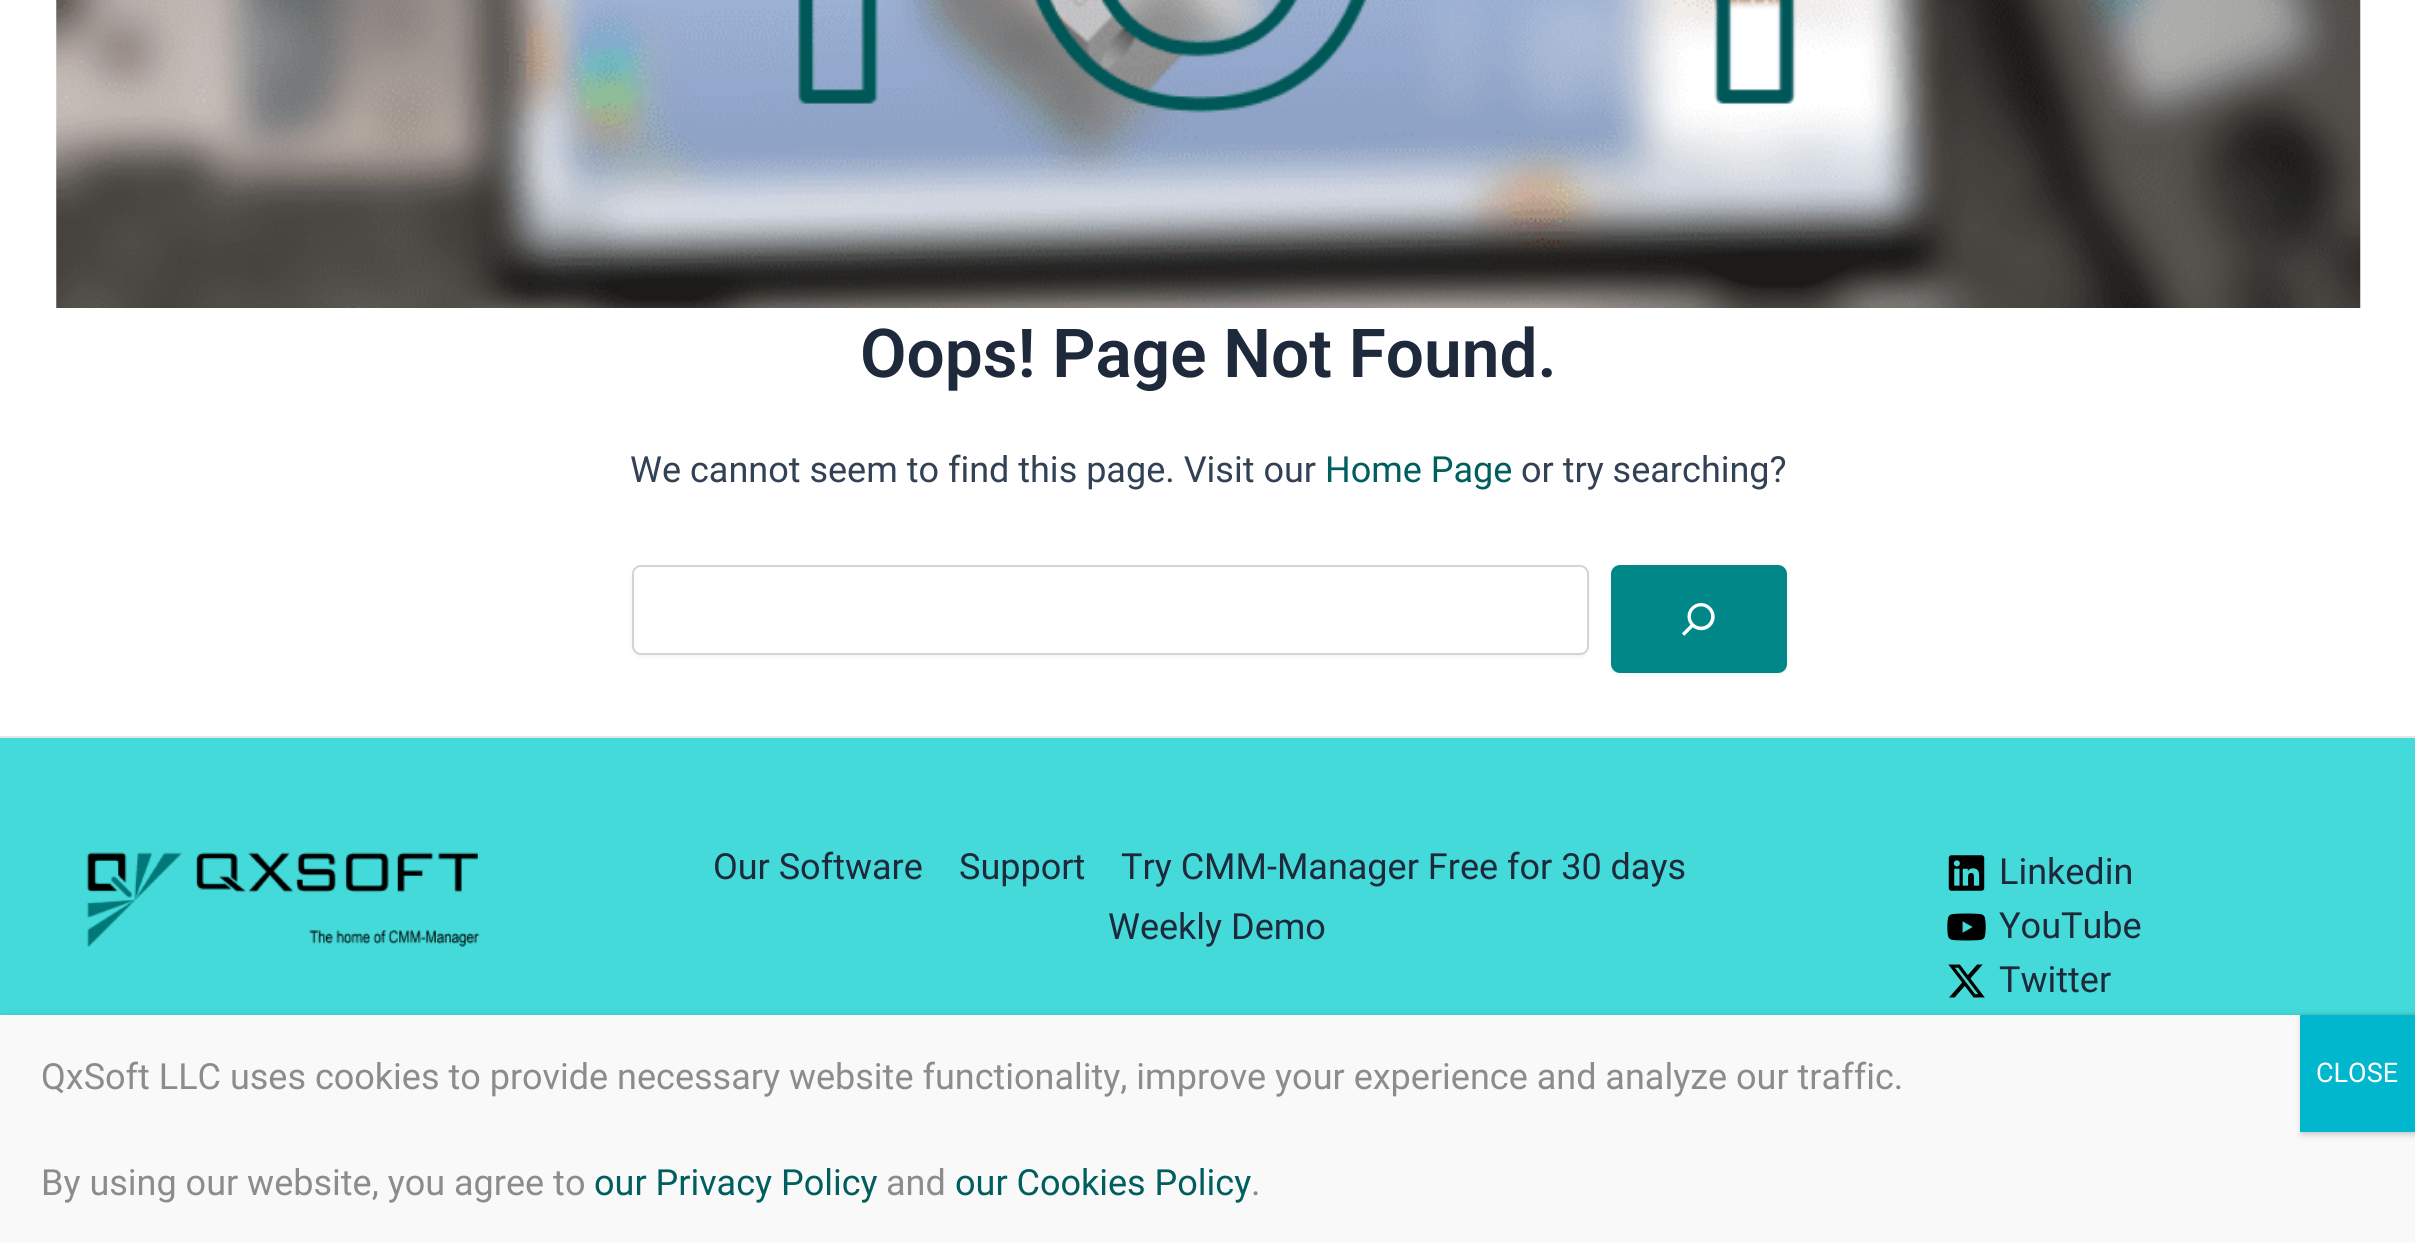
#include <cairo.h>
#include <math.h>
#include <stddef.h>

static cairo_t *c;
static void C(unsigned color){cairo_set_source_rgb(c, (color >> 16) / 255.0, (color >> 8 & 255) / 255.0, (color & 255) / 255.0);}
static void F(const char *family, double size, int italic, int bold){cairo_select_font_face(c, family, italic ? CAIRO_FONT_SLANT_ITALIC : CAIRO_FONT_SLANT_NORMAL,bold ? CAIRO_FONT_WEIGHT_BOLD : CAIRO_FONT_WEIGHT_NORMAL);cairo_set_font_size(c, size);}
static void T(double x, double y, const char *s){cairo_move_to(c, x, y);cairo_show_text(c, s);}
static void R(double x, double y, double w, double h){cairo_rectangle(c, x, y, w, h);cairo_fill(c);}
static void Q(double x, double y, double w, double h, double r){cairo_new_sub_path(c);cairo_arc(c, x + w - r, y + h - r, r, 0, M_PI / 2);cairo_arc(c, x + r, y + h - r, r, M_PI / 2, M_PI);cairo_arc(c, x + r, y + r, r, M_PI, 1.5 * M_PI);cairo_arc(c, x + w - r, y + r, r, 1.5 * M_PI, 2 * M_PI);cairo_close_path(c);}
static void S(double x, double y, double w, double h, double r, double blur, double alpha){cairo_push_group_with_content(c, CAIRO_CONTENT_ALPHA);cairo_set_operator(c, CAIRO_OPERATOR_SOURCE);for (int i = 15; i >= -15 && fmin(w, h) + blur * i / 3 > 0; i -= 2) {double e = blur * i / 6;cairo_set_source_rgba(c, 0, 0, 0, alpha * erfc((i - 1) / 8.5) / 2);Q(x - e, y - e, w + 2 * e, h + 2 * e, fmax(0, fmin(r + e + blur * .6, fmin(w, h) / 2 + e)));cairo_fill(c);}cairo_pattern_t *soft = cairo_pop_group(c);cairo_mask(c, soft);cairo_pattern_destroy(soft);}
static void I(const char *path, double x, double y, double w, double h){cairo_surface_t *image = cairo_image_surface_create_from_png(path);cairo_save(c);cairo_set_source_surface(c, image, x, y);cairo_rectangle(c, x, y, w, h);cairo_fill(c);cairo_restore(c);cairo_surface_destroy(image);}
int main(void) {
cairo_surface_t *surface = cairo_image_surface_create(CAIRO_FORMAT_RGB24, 2415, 1243);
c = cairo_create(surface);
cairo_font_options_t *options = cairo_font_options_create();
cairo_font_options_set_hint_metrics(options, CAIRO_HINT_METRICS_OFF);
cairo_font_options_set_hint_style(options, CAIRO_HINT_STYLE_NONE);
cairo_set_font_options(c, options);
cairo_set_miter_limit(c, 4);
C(0xffffff);
cairo_paint(c);
I("1.png",56,0,2305,308);
F("Roboto SemiBold",67.5,0,0);
C(0x1e293b);
T(860,377,"Oops! Page Not Found.");
F("Roboto",36,0,0);
C(0x334155);
T(630,482,"We cannot seem to find this page. Visit our");
C(0x005e5e);
T(1325,482,"Home Page");
C(0x334155);
T(1521,482,"or try searching?");
C(0x000000);
S(632,567,957,90,9,2,.05);
C(0xffffff);
Q(633,566,955,88,8);
cairo_fill_preserve(c);
C(0xd1d5db);
cairo_stroke(c);
C(0x000000);
S(1611,567,176,108,9,2,.05);
C(0x008889);
Q(1611,565,176,108,9);
cairo_fill(c);
I("2.png",1682,603,33,33);
C(0x44dada);
R(0,738,2415,277);
C(0xe6e6e6);
R(0,736,2415,2);
I("3.png",86,852,394,95);
C(0x1e293b);
T(713,879,"Our Software");
T(959,879,"Support");
T(1121,879,"Try CMM-Manager Free for 30 days");
T(1108,939,"Weekly Demo");
I("4.png",1948,855,37,36);
T(1999,884,"Linkedin");
I("5.png",1947,913,39,28);
T(1999,938,"YouTube");
I("6.png",1948,964,37,34);
T(1999,992,"Twitter");
C(0x020202);
S(2,1017,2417,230,0,3.5,.23);
C(0xf9f9f9);
R(0,1015,2415,228);
C(0x8c8c8c);
T(41,1089,"QxSoft LLC uses cookies to provide necessary website functionality, improve your experience and analyze our traffic.");
T(41,1195,"By using our website, you agree to");
C(0x005e5e);
T(594,1195,"our Privacy Policy");
C(0x8c8c8c);
T(886,1195,"and");
C(0x005e5e);
T(955,1195,"our Cookies Policy");
C(0x8c8c8c);
T(1251,1195,".");
C(0x020202);
S(2302,1017,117,117,0,3.5,.23);
C(0x00b7cd);
R(2300,1015,115,117);
F("Roboto",27,0,0);
C(0xffffff);
T(2316,1082,"CLOSE");
cairo_surface_write_to_png(surface, "o.png");
cairo_font_options_destroy(options);
cairo_destroy(c);
cairo_surface_destroy(surface);
return 0;
}
